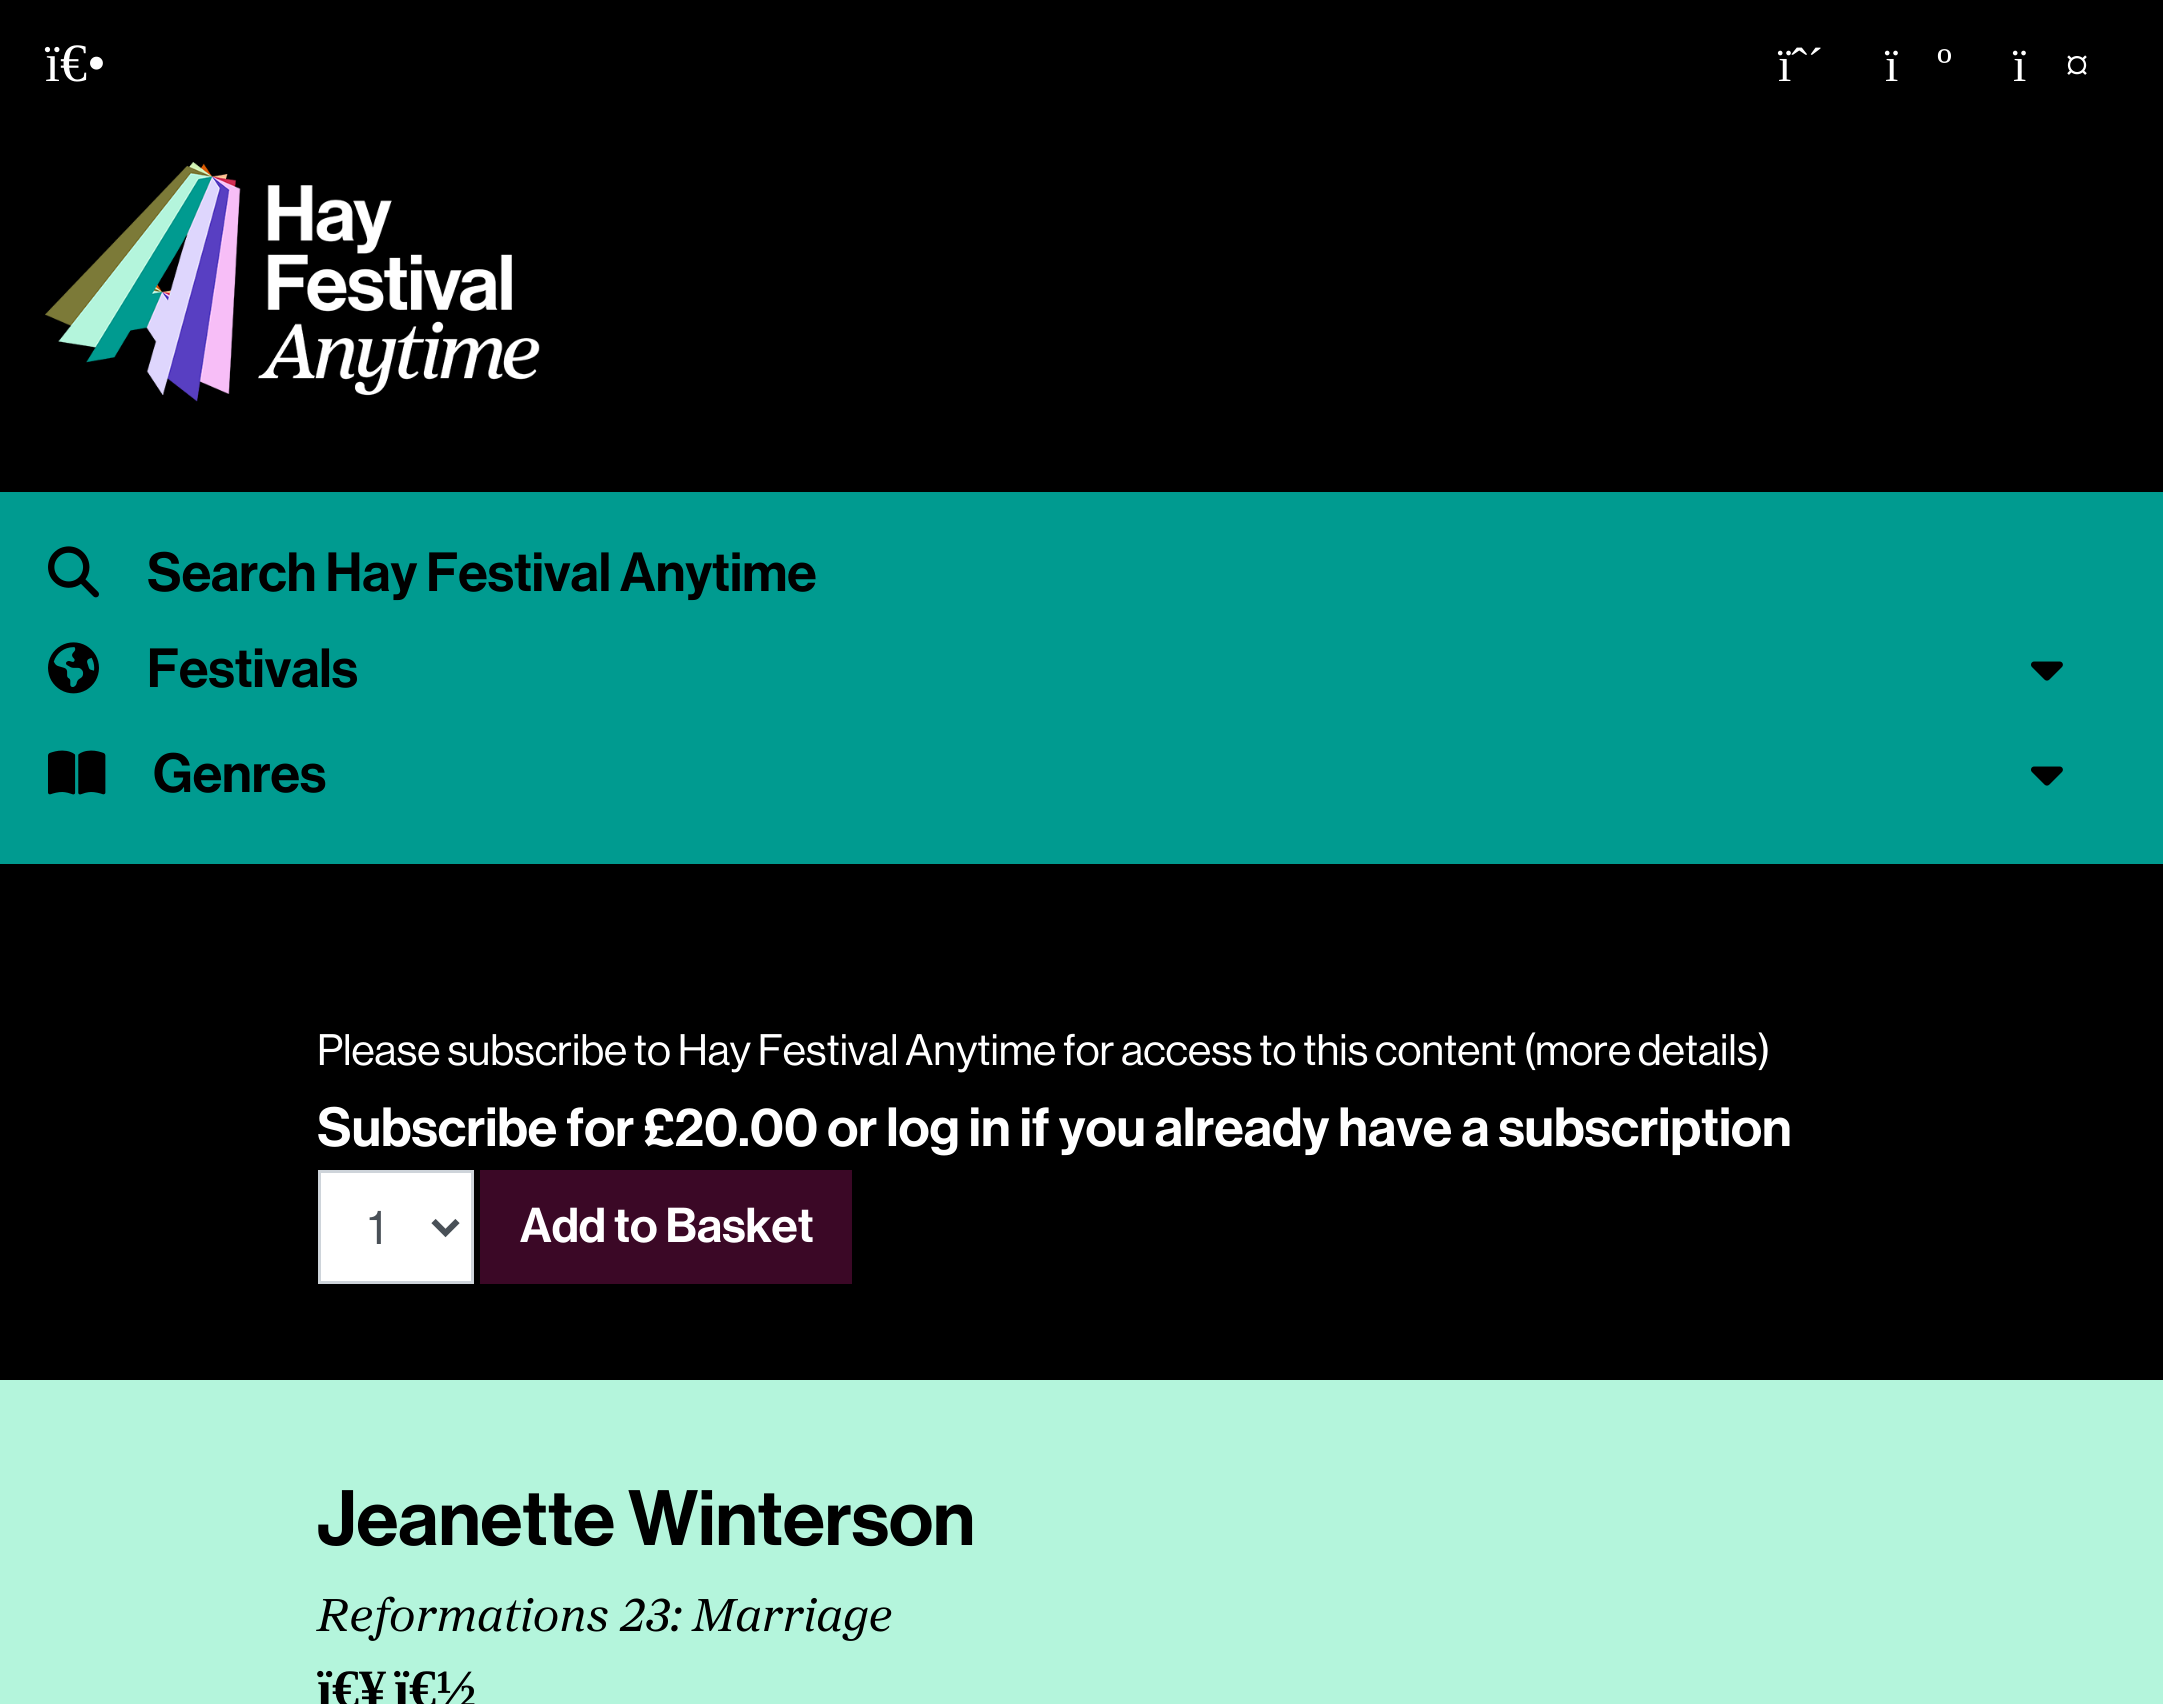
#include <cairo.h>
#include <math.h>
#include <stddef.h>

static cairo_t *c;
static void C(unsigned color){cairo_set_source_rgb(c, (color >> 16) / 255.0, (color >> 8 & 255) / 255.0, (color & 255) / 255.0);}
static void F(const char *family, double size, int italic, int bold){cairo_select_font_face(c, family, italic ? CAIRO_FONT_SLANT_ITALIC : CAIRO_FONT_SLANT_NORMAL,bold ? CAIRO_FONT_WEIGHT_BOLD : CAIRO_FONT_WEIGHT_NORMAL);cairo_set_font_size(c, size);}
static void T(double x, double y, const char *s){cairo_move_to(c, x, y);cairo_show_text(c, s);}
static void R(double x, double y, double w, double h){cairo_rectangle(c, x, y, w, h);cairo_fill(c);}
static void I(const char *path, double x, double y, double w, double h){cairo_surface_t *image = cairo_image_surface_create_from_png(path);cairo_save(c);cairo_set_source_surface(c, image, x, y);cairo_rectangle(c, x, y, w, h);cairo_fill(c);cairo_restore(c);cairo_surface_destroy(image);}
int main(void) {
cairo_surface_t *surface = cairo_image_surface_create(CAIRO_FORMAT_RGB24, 2163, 1704);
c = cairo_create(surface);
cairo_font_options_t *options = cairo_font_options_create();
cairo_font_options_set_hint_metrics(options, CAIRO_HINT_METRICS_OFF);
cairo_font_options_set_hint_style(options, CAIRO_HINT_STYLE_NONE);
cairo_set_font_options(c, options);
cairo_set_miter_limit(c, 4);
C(0x000000);
cairo_paint(c);
F("Liberation Serif",54,0,0);
C(0xffffff);
T(45,81,"ï€•");
F("Liberation Serif",48,0,0);
T(1778,81,"ïˆ´");
T(1885,81,"ï");
T(1937,81,"º");
T(2013,81,"ï");
T(2065,81,"¤");
I("1.png",45,162,495,240);
C(0x009b90);
R(0,492,2163,372);
I("2.png",48,546,51,52);
F("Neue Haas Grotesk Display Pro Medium",54,0,0);
C(0x000000);
T(147,591,"Search Hay Festival Anytime");
I("3.png",48,642,51,52);
T(147,687,"Festivals");
I("4.png",2031,661,32,20);
I("5.png",48,750,58,45);
T(153,792,"Genres");
I("4.png",2031,766,32,20);
F("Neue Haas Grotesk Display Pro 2 Medium",43.2,0,0);
C(0xffffff);
T(317,1065,"Please subscribe to Hay Festival Anytime for access to this content (");
T(1535,1065,"more details)");
F("Neue Haas Grotesk Display Pro Medium",54,0,0);
T(317,1146,"Subscribe for £20.00 or log in if you already have a subscription");
cairo_rectangle(c,319.5,1171.5,153,111);
cairo_fill_preserve(c);
C(0xced4da);
cairo_set_line_width(c,3);
cairo_stroke(c);
cairo_new_path(c);
cairo_move_to(c,433.5,1221);
cairo_line_to(c,445.5,1233);
cairo_line_to(c,457.5,1221);
C(0x495057);
cairo_set_line_width(c,6);
cairo_stroke(c);
F("Neue Haas Grotesk Display Pro 2 Medium",48,0,0);
T(368,1244,"1");
C(0x3b0826);
R(480,1170,372,114);
F("Neue Haas Grotesk Display Pro Medium",48,0,0);
C(0xffffff);
T(520,1242,"Add to Basket");
C(0xb4f5dc);
R(0,1380,2163,324);
F("Neue Haas Grotesk Display Pro Medium",76.75,0,0);
C(0x000000);
T(317,1545,"Jeanette Winterson");
F("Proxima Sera",48,1,0);
T(317,1631,"Reformations 23: Marriage");
F("Liberation Serif",54,0,1);
T(317,1707,"ï€¥");
T(394,1707,"ï€½");
cairo_surface_write_to_png(surface, "o.png");
cairo_font_options_destroy(options);
cairo_destroy(c);
cairo_surface_destroy(surface);
return 0;
}
